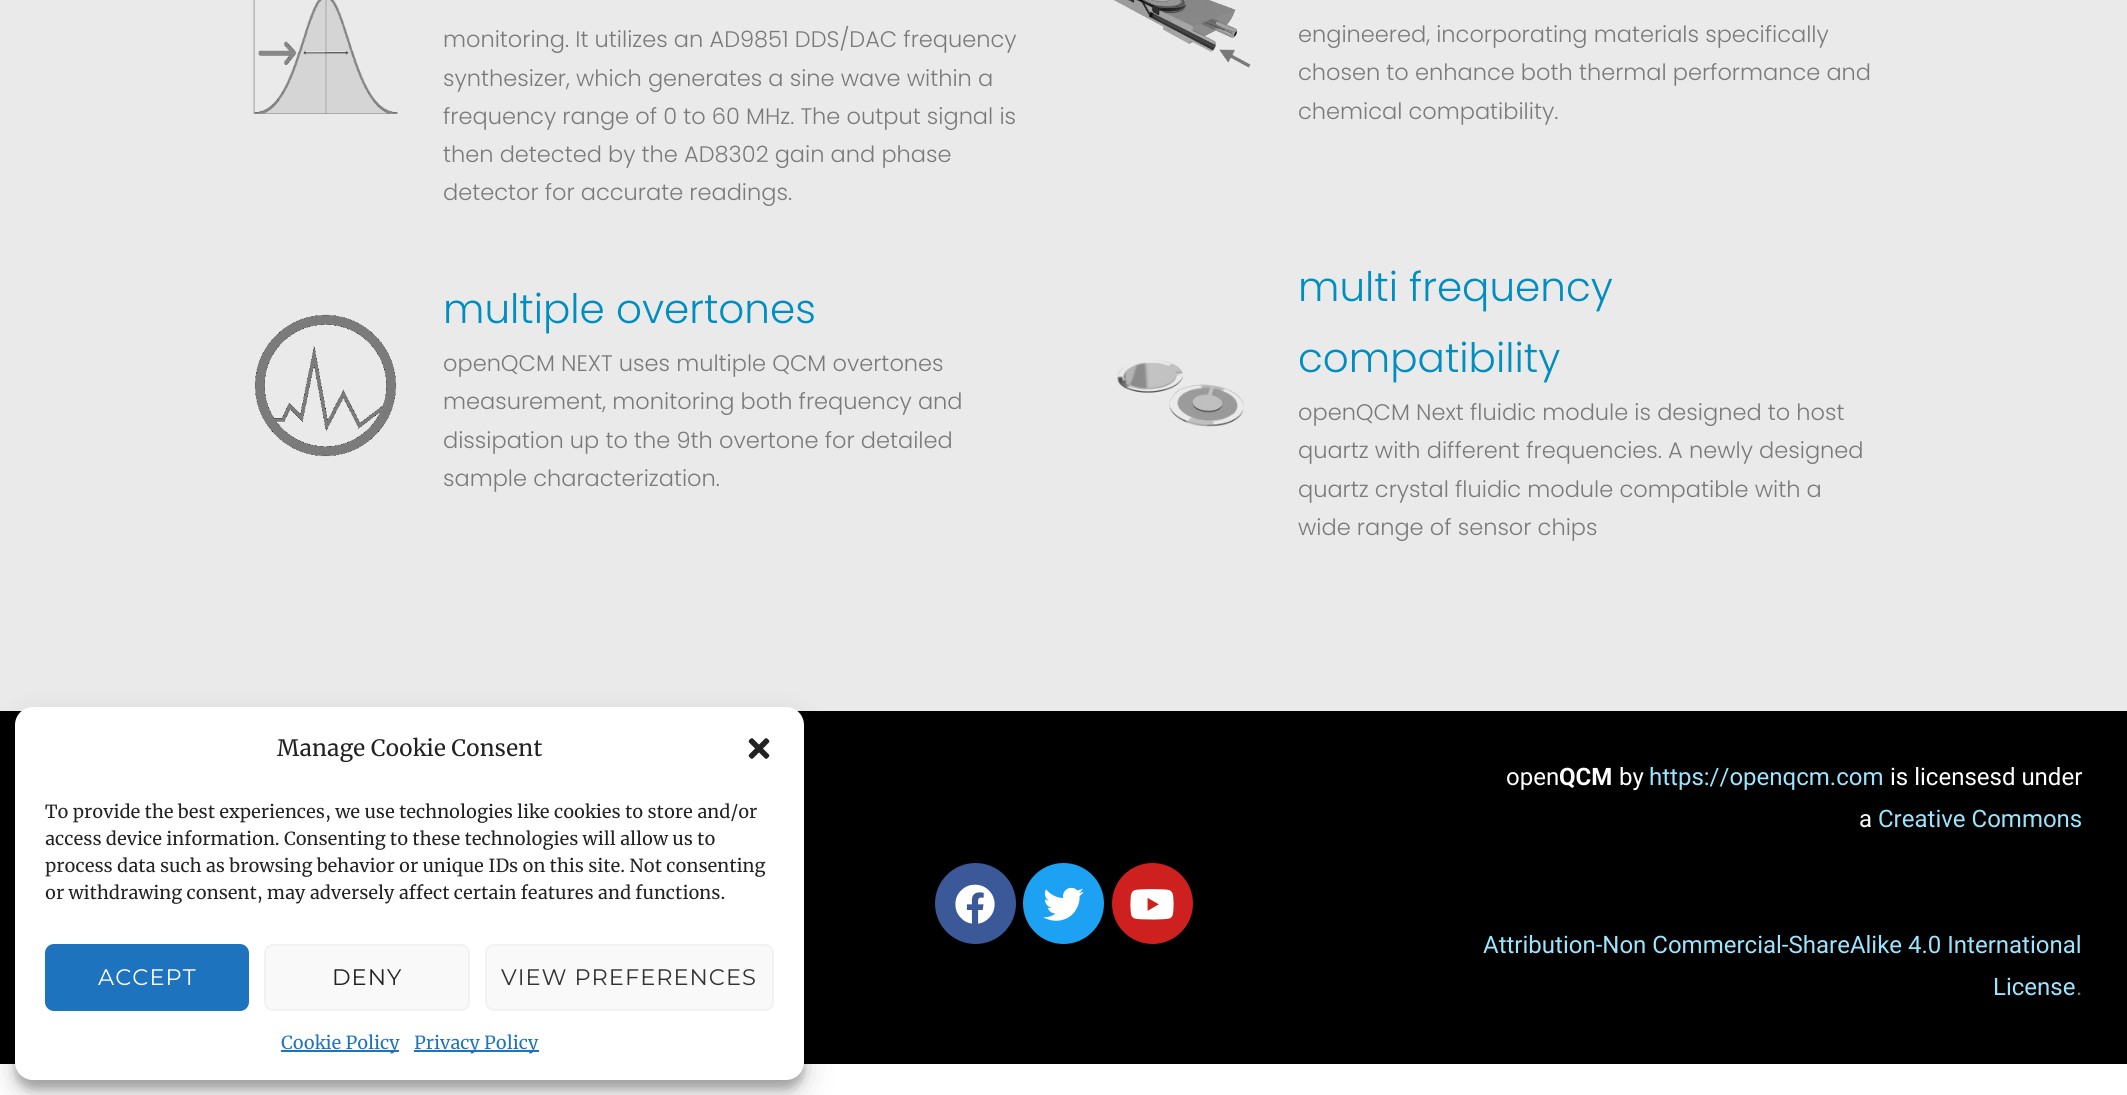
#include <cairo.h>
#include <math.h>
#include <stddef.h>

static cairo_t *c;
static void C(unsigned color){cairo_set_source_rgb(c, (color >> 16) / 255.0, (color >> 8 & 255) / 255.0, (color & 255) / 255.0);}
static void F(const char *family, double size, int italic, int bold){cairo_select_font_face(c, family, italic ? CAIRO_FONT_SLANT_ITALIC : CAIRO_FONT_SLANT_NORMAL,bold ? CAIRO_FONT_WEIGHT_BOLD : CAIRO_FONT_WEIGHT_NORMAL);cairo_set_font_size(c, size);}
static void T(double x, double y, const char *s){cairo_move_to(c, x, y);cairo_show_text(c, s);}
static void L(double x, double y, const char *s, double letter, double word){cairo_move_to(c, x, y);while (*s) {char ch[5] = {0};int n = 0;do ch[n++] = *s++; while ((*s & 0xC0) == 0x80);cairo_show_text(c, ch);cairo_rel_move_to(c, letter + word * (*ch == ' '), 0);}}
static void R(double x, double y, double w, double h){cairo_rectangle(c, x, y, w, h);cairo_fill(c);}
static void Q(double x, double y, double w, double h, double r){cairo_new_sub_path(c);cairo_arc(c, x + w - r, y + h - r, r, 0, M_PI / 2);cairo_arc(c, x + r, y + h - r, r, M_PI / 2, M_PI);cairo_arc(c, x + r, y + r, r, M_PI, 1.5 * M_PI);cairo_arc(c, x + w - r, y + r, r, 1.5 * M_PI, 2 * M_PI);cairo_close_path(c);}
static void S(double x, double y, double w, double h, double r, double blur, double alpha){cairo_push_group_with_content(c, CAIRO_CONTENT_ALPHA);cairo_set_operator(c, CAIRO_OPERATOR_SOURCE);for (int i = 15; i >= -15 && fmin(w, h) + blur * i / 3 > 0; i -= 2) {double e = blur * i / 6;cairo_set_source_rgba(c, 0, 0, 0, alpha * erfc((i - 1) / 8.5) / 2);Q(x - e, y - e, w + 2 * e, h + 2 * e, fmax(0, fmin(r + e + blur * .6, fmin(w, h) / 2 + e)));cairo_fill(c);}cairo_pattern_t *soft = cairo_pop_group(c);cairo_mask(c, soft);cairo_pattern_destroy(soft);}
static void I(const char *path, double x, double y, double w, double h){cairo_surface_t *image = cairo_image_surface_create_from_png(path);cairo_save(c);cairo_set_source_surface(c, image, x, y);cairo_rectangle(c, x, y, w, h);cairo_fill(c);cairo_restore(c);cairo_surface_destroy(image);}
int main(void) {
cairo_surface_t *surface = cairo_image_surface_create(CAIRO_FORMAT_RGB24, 2127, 1095);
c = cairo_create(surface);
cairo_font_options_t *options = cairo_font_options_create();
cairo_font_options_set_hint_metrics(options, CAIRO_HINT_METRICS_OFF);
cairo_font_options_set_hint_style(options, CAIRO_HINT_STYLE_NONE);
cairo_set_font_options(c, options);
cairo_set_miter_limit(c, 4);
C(0xeaeaea);
cairo_paint(c);
C(0x000000);
R(0,711,2127,353);
C(0xffffff);
R(0,1064,2127,31);
C(0x000000);
S(15,716,789,373,18,4.5,.23);
S(15,722,789,373,18,15,.19);
C(0xffffff);
Q(15,707,789,373,18);
cairo_fill(c);
F("Merriweather",22.5,0,0);
C(0x222222);
T(277,756,"Manage Cookie Consent");
I("1.png",748,738,22,21);
F("Merriweather",18,0,0);
T(45,818,"To provide the best experiences, we use technologies like cookies to store and/or");
T(45,845,"access device information. Consenting to these technologies will allow us to");
T(45,872,"process data such as browsing behavior or unique IDs on this site. Not consenting");
T(45,899,"or withdrawing consent, may adversely affect certain features and functions.");
C(0x1e73be);
Q(46,945,202,65,8);
cairo_fill_preserve(c);
cairo_stroke(c);
F("Montserrat Thin",22.5,0,0);
C(0xffffff);
L(98,985,"ACCEPT",1,0);
C(0xf9f9f9);
Q(265,945,204,65,8);
cairo_fill_preserve(c);
C(0xf2f2f2);
cairo_stroke(c);
C(0x222222);
L(332,985,"DENY",1,0);
C(0xf9f9f9);
Q(486,945,287,65,8);
cairo_fill_preserve(c);
C(0xf2f2f2);
cairo_stroke(c);
C(0x333333);
L(501,985,"VIEW PREFERENCES",1,0);
C(0x1e73be);
R(281,1050,118,2);
F("Merriweather",18,0,0);
T(281,1049,"Cookie Policy");
R(414,1050,125,2);
T(414,1049,"Privacy Policy");
I("2.png",253,0,145,114);
F("Poppins Light",22.5,0,0);
C(0x7a7a7a);
T(443,47,"monitoring. It utilizes an AD9851 DDS/DAC frequency");
T(443,86,"synthesizer, which generates a sine wave within a");
T(443,124,"frequency range of 0 to 60 MHz. The output signal is");
T(443,162,"then detected by the AD8302 gain and phase");
T(443,200,"detector for accurate readings.");
I("3.png",254,314,143,143);
F("Poppins Light",40.5,0,0);
C(0x008ec0);
T(443,323,"multiple overtones");
F("Poppins Light",22.5,0,0);
C(0x7a7a7a);
T(443,371,"openQCM NEXT uses multiple QCM overtones");
T(443,409,"measurement, monitoring both frequency and");
T(443,448,"dissipation up to the 9th overtone for detailed");
T(443,486,"sample characterization.");
I("4.png",1113,0,138,68);
T(1298,42,"engineered, incorporating materials specifically");
T(1298,80,"chosen to enhance both thermal performance and");
T(1298,119,"chemical compatibility.");
I("5.png",1117,360,133,74);
F("Poppins Light",40.5,0,0);
C(0x008ec0);
T(1298,301,"multi frequency");
T(1298,372,"compatibility");
F("Poppins Light",22.5,0,0);
C(0x7a7a7a);
T(1298,420,"openQCM Next fluidic module is designed to host");
T(1298,458,"quartz with different frequencies. A newly designed");
T(1298,497,"quartz crystal fluidic module compatible with a");
T(1298,535,"wide range of sensor chips");
C(0x3b5998);
cairo_new_path(c);
cairo_arc(c,975.5,903.5,40.5,0,2 * M_PI);
cairo_fill(c);
I("6.png",955,884,40,40);
C(0x1da1f2);
cairo_arc(c,1063.5,903.5,40.5,0,2 * M_PI);
cairo_fill(c);
I("7.png",1043,887,41,34);
C(0xcd201f);
cairo_arc(c,1152.5,903.5,40.5,0,2 * M_PI);
cairo_fill(c);
I("8.png",1130,889,44,31);
F("Roboto",24,0,0);
C(0xffffff);
T(1506,785,"open");
F("Roboto",24,0,1);
T(1559,785,"QCM");
F("Roboto",24,0,0);
T(1619,785,"by");
C(0x9be5ff);
T(1649,785,"https://openqcm.com");
C(0xffffff);
T(1890,785,"is licensesd under");
T(1859,827,"a");
C(0x9be5ff);
T(1878,827,"Creative Commons");
T(1483,953,"Attribution-Non Commercial-ShareAlike 4.0 International");
T(1993,995,"License");
C(0x7a7a7a);
T(2076,995,".");
cairo_surface_write_to_png(surface, "o.png");
cairo_font_options_destroy(options);
cairo_destroy(c);
cairo_surface_destroy(surface);
return 0;
}
